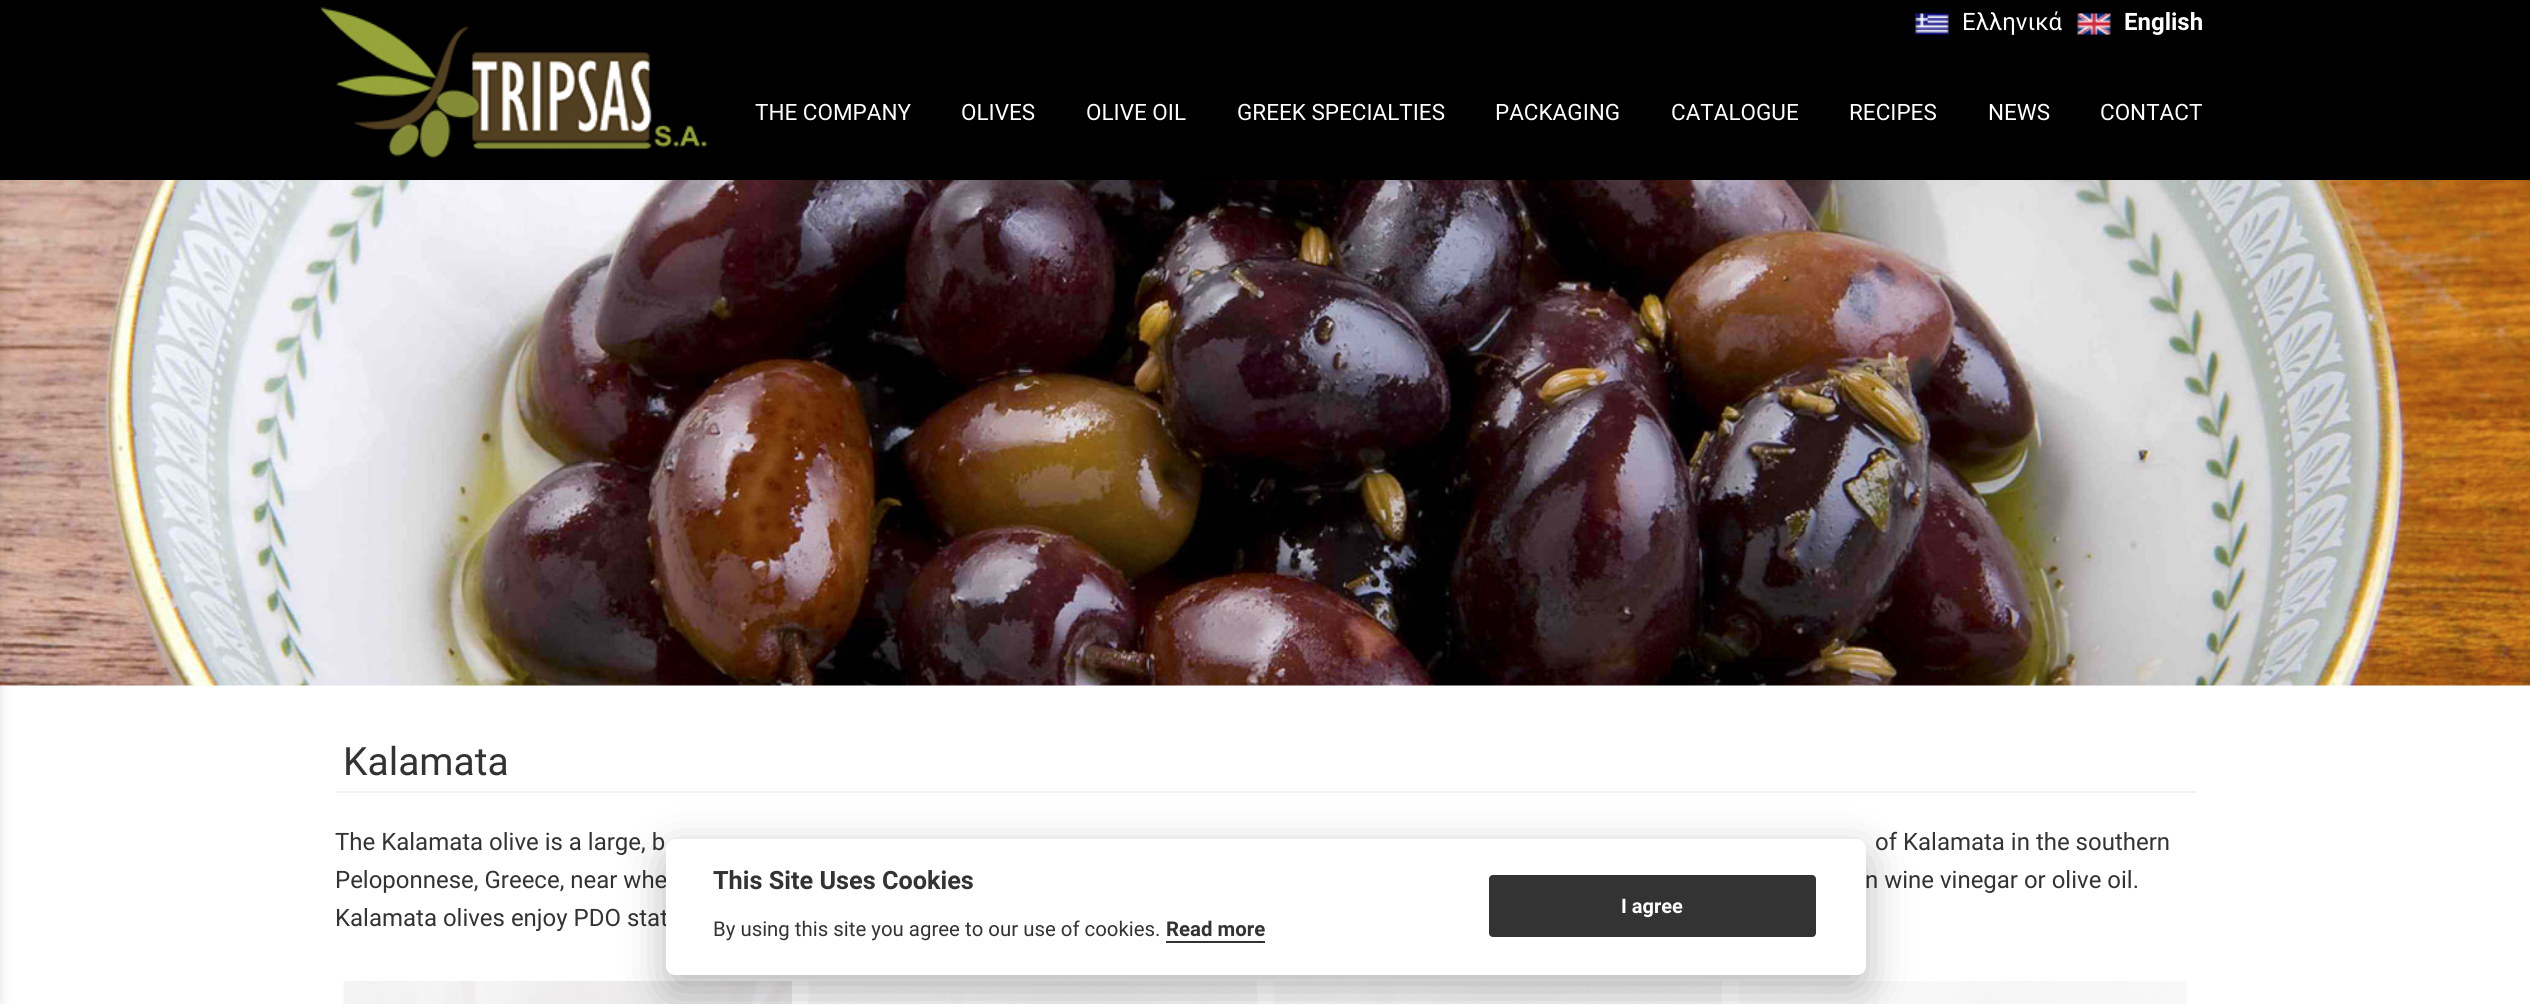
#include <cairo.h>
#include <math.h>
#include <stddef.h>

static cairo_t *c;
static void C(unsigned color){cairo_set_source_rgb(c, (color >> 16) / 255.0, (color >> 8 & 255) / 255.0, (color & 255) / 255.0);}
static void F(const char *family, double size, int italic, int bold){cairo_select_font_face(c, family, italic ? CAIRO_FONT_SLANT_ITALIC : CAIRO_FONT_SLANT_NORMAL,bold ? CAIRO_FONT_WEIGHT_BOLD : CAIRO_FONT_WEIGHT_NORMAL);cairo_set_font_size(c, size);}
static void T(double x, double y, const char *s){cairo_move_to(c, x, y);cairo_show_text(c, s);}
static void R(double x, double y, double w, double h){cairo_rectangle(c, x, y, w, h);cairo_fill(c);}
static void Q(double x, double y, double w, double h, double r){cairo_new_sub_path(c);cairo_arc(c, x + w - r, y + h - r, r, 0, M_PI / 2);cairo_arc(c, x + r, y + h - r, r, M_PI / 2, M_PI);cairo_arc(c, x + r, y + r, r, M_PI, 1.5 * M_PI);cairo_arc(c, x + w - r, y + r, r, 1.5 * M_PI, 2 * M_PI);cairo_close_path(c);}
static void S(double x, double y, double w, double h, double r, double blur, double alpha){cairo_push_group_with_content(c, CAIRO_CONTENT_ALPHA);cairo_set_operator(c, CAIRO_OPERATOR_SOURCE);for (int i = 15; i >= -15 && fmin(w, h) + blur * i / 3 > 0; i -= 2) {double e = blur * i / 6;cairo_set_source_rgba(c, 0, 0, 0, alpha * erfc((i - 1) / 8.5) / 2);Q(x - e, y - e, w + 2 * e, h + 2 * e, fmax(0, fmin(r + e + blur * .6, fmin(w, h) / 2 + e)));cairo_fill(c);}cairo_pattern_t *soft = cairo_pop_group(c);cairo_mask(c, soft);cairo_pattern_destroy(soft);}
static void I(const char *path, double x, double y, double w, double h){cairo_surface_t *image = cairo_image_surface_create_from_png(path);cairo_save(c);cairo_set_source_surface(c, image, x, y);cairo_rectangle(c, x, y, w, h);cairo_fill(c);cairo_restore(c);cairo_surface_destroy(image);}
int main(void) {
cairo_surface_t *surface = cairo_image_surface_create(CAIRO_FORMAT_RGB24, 2530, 1004);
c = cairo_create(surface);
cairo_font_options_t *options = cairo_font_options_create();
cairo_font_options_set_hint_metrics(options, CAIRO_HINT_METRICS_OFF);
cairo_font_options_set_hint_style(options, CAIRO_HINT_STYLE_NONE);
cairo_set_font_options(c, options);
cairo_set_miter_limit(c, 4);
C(0xffffff);
cairo_paint(c);
C(0x000000);
R(0,0,2530,180);
I("4.png",0,180,2530,506);
C(0x000000);
S(-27,0,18,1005,0,9,.4);
I("1.png",321,7,386,151);
I("2.png",1915,13,34,22);
F("Roboto",24,0,0);
C(0xffffff);
T(1962,30,"Ελληνικά");
I("3.png",2077,13,34,22);
F("Roboto",24,0,1);
T(2124,30,"English");
F("Roboto",22.5,0,0);
T(755,120,"THE COMPANY");
T(961,120,"OLIVES");
T(1086,120,"OLIVE OIL");
T(1237,120,"GREEK SPECIALTIES");
T(1495,120,"PACKAGING");
T(1671,120,"CATALOGUE");
T(1849,120,"RECIPES");
T(1988,120,"NEWS");
T(2100,120,"CONTACT");
C(0xf3f3f3);
R(336,791,1860,2);
F("Roboto",39,0,0);
C(0x333333);
T(343,775,"Kalamata");
F("Roboto",24,0,0);
T(335,850,"The Kalamata olive is a large, b");
T(1875,850,"of Kalamata in the southern");
T(335,888,"Peloponnese, Greece, near whe");
T(1865,888,"n wine vinegar or olive oil.");
T(335,926,"Kalamata οlives enjoy PDO stat");
I("5.png",343,981,449,23);
I("6.png",808,981,449,23);
I("7.png",1273,981,449,23);
I("8.png",1739,981,448,23);
C(0x020203);
S(666,854,1200,136,9,22.5,.28);
C(0xffffff);
Q(666,839,1200,136,9);
cairo_fill(c);
F("Roboto",25.25,0,1);
C(0x333333);
T(713,889,"This Site Uses Cookies");
F("Roboto",20.4,0,0);
T(713,936,"By using this site you agree to our use of cookies.");
F("Roboto",20.4,0,1);
T(1166,936,"Read more");
R(1166,941,99,2);
Q(1488,874,329,64,5);
cairo_fill_preserve(c);
C(0xffffff);
cairo_stroke(c);
F("Roboto",20,0,1);
T(1621,913,"I agree");
cairo_surface_write_to_png(surface, "o.png");
cairo_font_options_destroy(options);
cairo_destroy(c);
cairo_surface_destroy(surface);
return 0;
}
